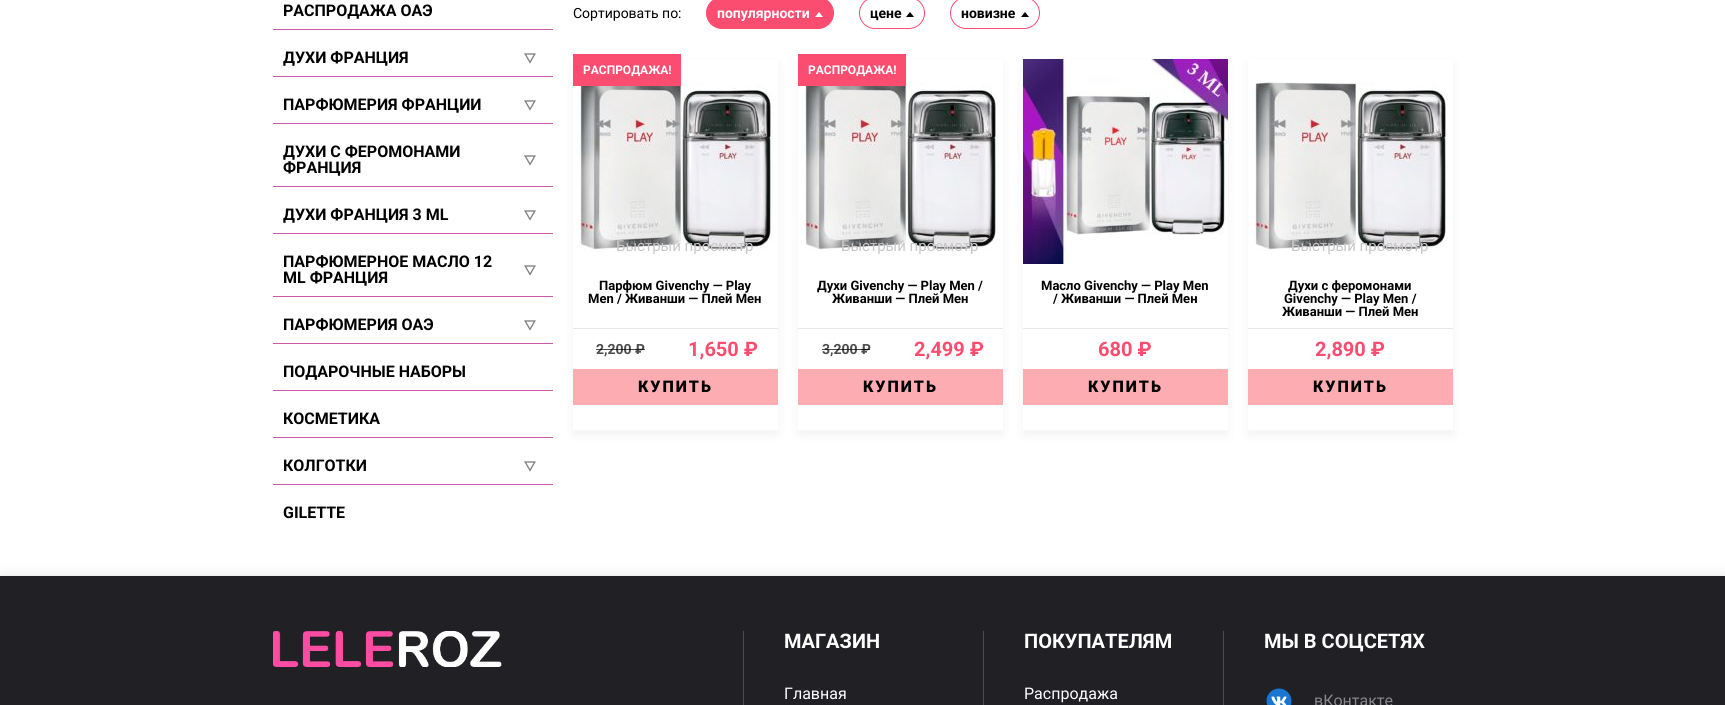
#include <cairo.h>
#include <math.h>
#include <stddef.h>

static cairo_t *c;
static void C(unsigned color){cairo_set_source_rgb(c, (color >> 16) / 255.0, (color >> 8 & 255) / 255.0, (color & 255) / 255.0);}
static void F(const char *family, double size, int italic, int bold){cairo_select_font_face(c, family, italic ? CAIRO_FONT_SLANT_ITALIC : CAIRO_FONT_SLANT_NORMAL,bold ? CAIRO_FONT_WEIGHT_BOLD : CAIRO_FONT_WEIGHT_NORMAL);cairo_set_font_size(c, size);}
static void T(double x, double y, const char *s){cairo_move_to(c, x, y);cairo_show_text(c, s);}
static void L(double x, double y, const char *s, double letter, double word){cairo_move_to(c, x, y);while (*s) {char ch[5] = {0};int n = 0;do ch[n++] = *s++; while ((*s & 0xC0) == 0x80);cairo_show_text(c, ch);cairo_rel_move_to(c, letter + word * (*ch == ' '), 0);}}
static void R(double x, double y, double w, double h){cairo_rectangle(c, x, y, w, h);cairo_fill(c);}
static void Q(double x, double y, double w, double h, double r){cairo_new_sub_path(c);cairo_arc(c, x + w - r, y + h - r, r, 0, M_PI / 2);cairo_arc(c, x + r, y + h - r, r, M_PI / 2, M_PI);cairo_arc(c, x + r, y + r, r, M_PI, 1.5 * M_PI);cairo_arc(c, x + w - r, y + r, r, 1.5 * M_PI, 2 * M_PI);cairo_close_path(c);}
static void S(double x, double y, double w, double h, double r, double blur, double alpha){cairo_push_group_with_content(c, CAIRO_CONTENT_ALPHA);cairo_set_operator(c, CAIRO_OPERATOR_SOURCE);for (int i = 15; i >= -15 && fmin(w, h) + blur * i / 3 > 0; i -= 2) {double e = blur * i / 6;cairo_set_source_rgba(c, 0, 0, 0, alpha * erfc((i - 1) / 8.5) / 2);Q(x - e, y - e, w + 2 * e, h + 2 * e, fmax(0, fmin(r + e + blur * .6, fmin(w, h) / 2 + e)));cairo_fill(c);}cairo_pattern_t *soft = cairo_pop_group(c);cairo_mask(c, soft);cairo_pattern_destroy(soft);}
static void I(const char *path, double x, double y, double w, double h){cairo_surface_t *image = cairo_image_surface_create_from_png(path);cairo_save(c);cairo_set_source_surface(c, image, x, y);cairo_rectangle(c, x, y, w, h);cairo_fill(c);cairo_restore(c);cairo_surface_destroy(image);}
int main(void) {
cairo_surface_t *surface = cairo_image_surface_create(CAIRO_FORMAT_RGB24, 1725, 705);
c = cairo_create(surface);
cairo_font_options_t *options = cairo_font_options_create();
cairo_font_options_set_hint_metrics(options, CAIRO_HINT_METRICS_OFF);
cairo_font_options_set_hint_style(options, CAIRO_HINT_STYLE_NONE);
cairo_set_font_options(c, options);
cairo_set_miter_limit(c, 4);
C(0xffffff);
cairo_paint(c);
C(0xcd5bab);
R(273,29,280,1);
F("Roboto",16,0,1);
C(0x000000);
T(283,16,"РАСПРОДАЖА ОАЭ");
C(0xcd5bab);
R(273,76,280,1);
C(0x000000);
T(283,63,"ДУХИ ФРАНЦИЯ");
I("1.png",524,53,12,11);
C(0xcd5bab);
R(273,123,280,1);
C(0x000000);
T(283,110,"ПАРФЮМЕРИЯ ФРАНЦИИ");
I("1.png",524,100,12,11);
C(0xcd5bab);
R(273,186,280,1);
C(0x000000);
T(283,157,"ДУХИ С ФЕРОМОНАМИ");
T(283,173,"ФРАНЦИЯ");
I("1.png",524,155,12,11);
C(0xcd5bab);
R(273,233,280,1);
C(0x000000);
T(283,220,"ДУХИ ФРАНЦИЯ 3 ML");
I("1.png",524,210,12,11);
C(0xcd5bab);
R(273,296,280,1);
C(0x000000);
T(283,267,"ПАРФЮМЕРНОЕ МАСЛО 12");
T(283,283,"ML ФРАНЦИЯ");
I("1.png",524,265,12,11);
C(0xcd5bab);
R(273,343,280,1);
C(0x000000);
T(283,330,"ПАРФЮМЕРИЯ ОАЭ");
I("1.png",524,320,12,11);
C(0xcd5bab);
R(273,390,280,1);
C(0x000000);
T(283,377,"ПОДАРОЧНЫЕ НАБОРЫ");
C(0xcd5bab);
R(273,437,280,1);
C(0x000000);
T(283,424,"КОСМЕТИКА");
C(0xcd5bab);
R(273,484,280,1);
C(0x000000);
T(283,471,"КОЛГОТКИ");
I("1.png",524,461,12,11);
T(283,518,"GILETTE");
F("Roboto",14,0,0);
T(573,18,"Сортировать по:");
C(0xfb4d70);
Q(706.5,-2.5,127,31,15.5);
cairo_fill_preserve(c);
cairo_set_line_width(c,1);
cairo_stroke(c);
F("Roboto",14,0,1);
C(0xffffff);
T(717,18,"популярности");
cairo_new_path(c);
cairo_move_to(c,823,17);
cairo_line_to(c,815,17);
cairo_line_to(c,819,12);
cairo_close_path(c);
cairo_fill(c);
Q(859.5,-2.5,65,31,15.5);
C(0xfb4d70);
cairo_stroke(c);
C(0x000000);
T(870,18,"цене");
cairo_new_path(c);
cairo_move_to(c,914,17);
cairo_line_to(c,906,17);
cairo_line_to(c,910,12);
cairo_close_path(c);
cairo_fill(c);
Q(950.5,-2.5,89,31,15.5);
C(0xfb4d70);
cairo_stroke(c);
C(0x000000);
T(961,18,"новизне");
cairo_new_path(c);
cairo_move_to(c,1029,17);
cairo_line_to(c,1021,17);
cairo_line_to(c,1025,12);
cairo_close_path(c);
cairo_fill(c);
cairo_save(c);
cairo_set_fill_rule(c,CAIRO_FILL_RULE_EVEN_ODD);
cairo_new_path(c);
cairo_move_to(c,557,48);
cairo_line_to(c,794,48);
cairo_line_to(c,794,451);
cairo_line_to(c,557,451);
cairo_close_path(c);
cairo_move_to(c,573,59);
cairo_line_to(c,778,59);
cairo_line_to(c,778,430);
cairo_line_to(c,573,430);
cairo_close_path(c);
cairo_clip(c);
C(0x000000);
S(573,64,205,371,0,5,.05);
cairo_restore(c);
I("2.png",573,81,200,170);
C(0xfb4d70);
R(573,54,108,32);
F("Roboto",12,0,1);
C(0xffffff);
T(583,74,"РАСПРОДАЖА!");
F("Roboto",15,0,0);
C(0xc7c7c8);
T(616,251,"Быстрый просмотр");
F("Roboto",13,0,1);
C(0x000000);
T(599,290,"Парфюм Givenchy — Play");
T(588,303,"Men / Живанши — Плей Мен");
C(0xe8e8e8);
R(573,328,205,1);
F("Roboto",14,0,1);
C(0x4d4d4d);
T(596,354,"2,200 ₽");
cairo_set_source_rgba(c,0,0,0,0.7);
R(596,349,49,1);
F("Roboto",20,0,1);
C(0xfb4d70);
T(688,356,"1,650 ₽");
C(0xfdacb2);
R(573,369,205,36);
F("Roboto Black",16,0,0);
C(0x000000);
L(638,392,"КУПИТЬ",2,0);
cairo_save(c);
cairo_set_fill_rule(c,CAIRO_FILL_RULE_EVEN_ODD);
cairo_new_path(c);
cairo_move_to(c,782,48);
cairo_line_to(c,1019,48);
cairo_line_to(c,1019,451);
cairo_line_to(c,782,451);
cairo_close_path(c);
cairo_move_to(c,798,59);
cairo_line_to(c,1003,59);
cairo_line_to(c,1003,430);
cairo_line_to(c,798,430);
cairo_close_path(c);
cairo_clip(c);
C(0x000000);
S(798,64,205,371,0,5,.05);
cairo_restore(c);
I("2.png",798,81,200,170);
C(0xfb4d70);
R(798,54,108,32);
F("Roboto",12,0,1);
C(0xffffff);
T(808,74,"РАСПРОДАЖА!");
F("Roboto",15,0,0);
C(0xc7c7c8);
T(841,251,"Быстрый просмотр");
F("Roboto",13,0,1);
C(0x000000);
T(817,290,"Духи Givenchy — Play Men /");
T(832,303,"Живанши — Плей Мен");
C(0xe8e8e8);
R(798,328,205,1);
F("Roboto",14,0,1);
C(0x4d4d4d);
T(822,354,"3,200 ₽");
cairo_set_source_rgba(c,0,0,0,0.7);
R(822,349,48,1);
F("Roboto",20,0,1);
C(0xfb4d70);
T(914,356,"2,499 ₽");
C(0xfdacb2);
R(798,369,205,36);
F("Roboto Black",16,0,0);
C(0x000000);
L(863,392,"КУПИТЬ",2,0);
cairo_save(c);
cairo_set_fill_rule(c,CAIRO_FILL_RULE_EVEN_ODD);
cairo_new_path(c);
cairo_move_to(c,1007,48);
cairo_line_to(c,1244,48);
cairo_line_to(c,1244,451);
cairo_line_to(c,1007,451);
cairo_close_path(c);
cairo_move_to(c,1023,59);
cairo_line_to(c,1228,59);
cairo_line_to(c,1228,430);
cairo_line_to(c,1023,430);
cairo_close_path(c);
cairo_clip(c);
C(0x000000);
S(1023,64,205,371,0,5,.05);
cairo_restore(c);
I("3.png",1023,59,205,205);
F("Roboto",13,0,1);
T(1041,290,"Масло Givenchy — Play Men");
T(1053,303,"/ Живанши — Плей Мен");
C(0xe8e8e8);
R(1023,328,205,1);
F("Roboto",20,0,1);
C(0xfb4d70);
T(1098,356,"680 ₽");
C(0xfdacb2);
R(1023,369,205,36);
F("Roboto Black",16,0,0);
C(0x000000);
L(1088,392,"КУПИТЬ",2,0);
cairo_save(c);
cairo_set_fill_rule(c,CAIRO_FILL_RULE_EVEN_ODD);
cairo_new_path(c);
cairo_move_to(c,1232,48);
cairo_line_to(c,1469,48);
cairo_line_to(c,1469,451);
cairo_line_to(c,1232,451);
cairo_close_path(c);
cairo_move_to(c,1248,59);
cairo_line_to(c,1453,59);
cairo_line_to(c,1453,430);
cairo_line_to(c,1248,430);
cairo_close_path(c);
cairo_clip(c);
C(0x000000);
S(1248,64,205,371,0,5,.05);
cairo_restore(c);
I("2.png",1248,81,200,170);
F("Roboto",15,0,0);
C(0xc7c7c8);
T(1291,251,"Быстрый просмотр");
F("Roboto",13,0,1);
C(0x000000);
T(1288,290,"Духи с феромонами");
T(1284,303,"Givenchy — Play Men /");
T(1282,316,"Живанши — Плей Мен");
C(0xe8e8e8);
R(1248,328,205,1);
F("Roboto",20,0,1);
C(0xfb4d70);
T(1315,356,"2,890 ₽");
C(0xfdacb2);
R(1248,369,205,36);
F("Roboto Black",16,0,0);
C(0x000000);
L(1313,392,"КУПИТЬ",2,0);
C(0x000000);
S(0,586,1725,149,0,10,.35);
C(0x202025);
R(0,576,1725,129);
I("4.png",273,631,229,36);
C(0x4d4d51);
R(743,631,1,74);
F("Roboto",20,0,1);
C(0xffffff);
T(784,648,"МАГАЗИН");
F("Roboto",16,0,0);
T(784,699,"Главная");
C(0x4d4d51);
R(983,631,1,74);
F("Roboto",20,0,1);
C(0xffffff);
T(1024,648,"ПОКУПАТЕЛЯМ");
F("Roboto",16,0,0);
T(1024,699,"Распродажа");
C(0x4d4d51);
R(1223,631,1,74);
F("Roboto",20,0,1);
C(0xffffff);
T(1264,648,"МЫ В СОЦСЕТЯХ");
I("5.png",1266,688,26,17);
F("Roboto",16,0,0);
C(0x888888);
T(1314,706,"вКонтакте");
cairo_surface_write_to_png(surface, "o.png");
cairo_font_options_destroy(options);
cairo_destroy(c);
cairo_surface_destroy(surface);
return 0;
}
